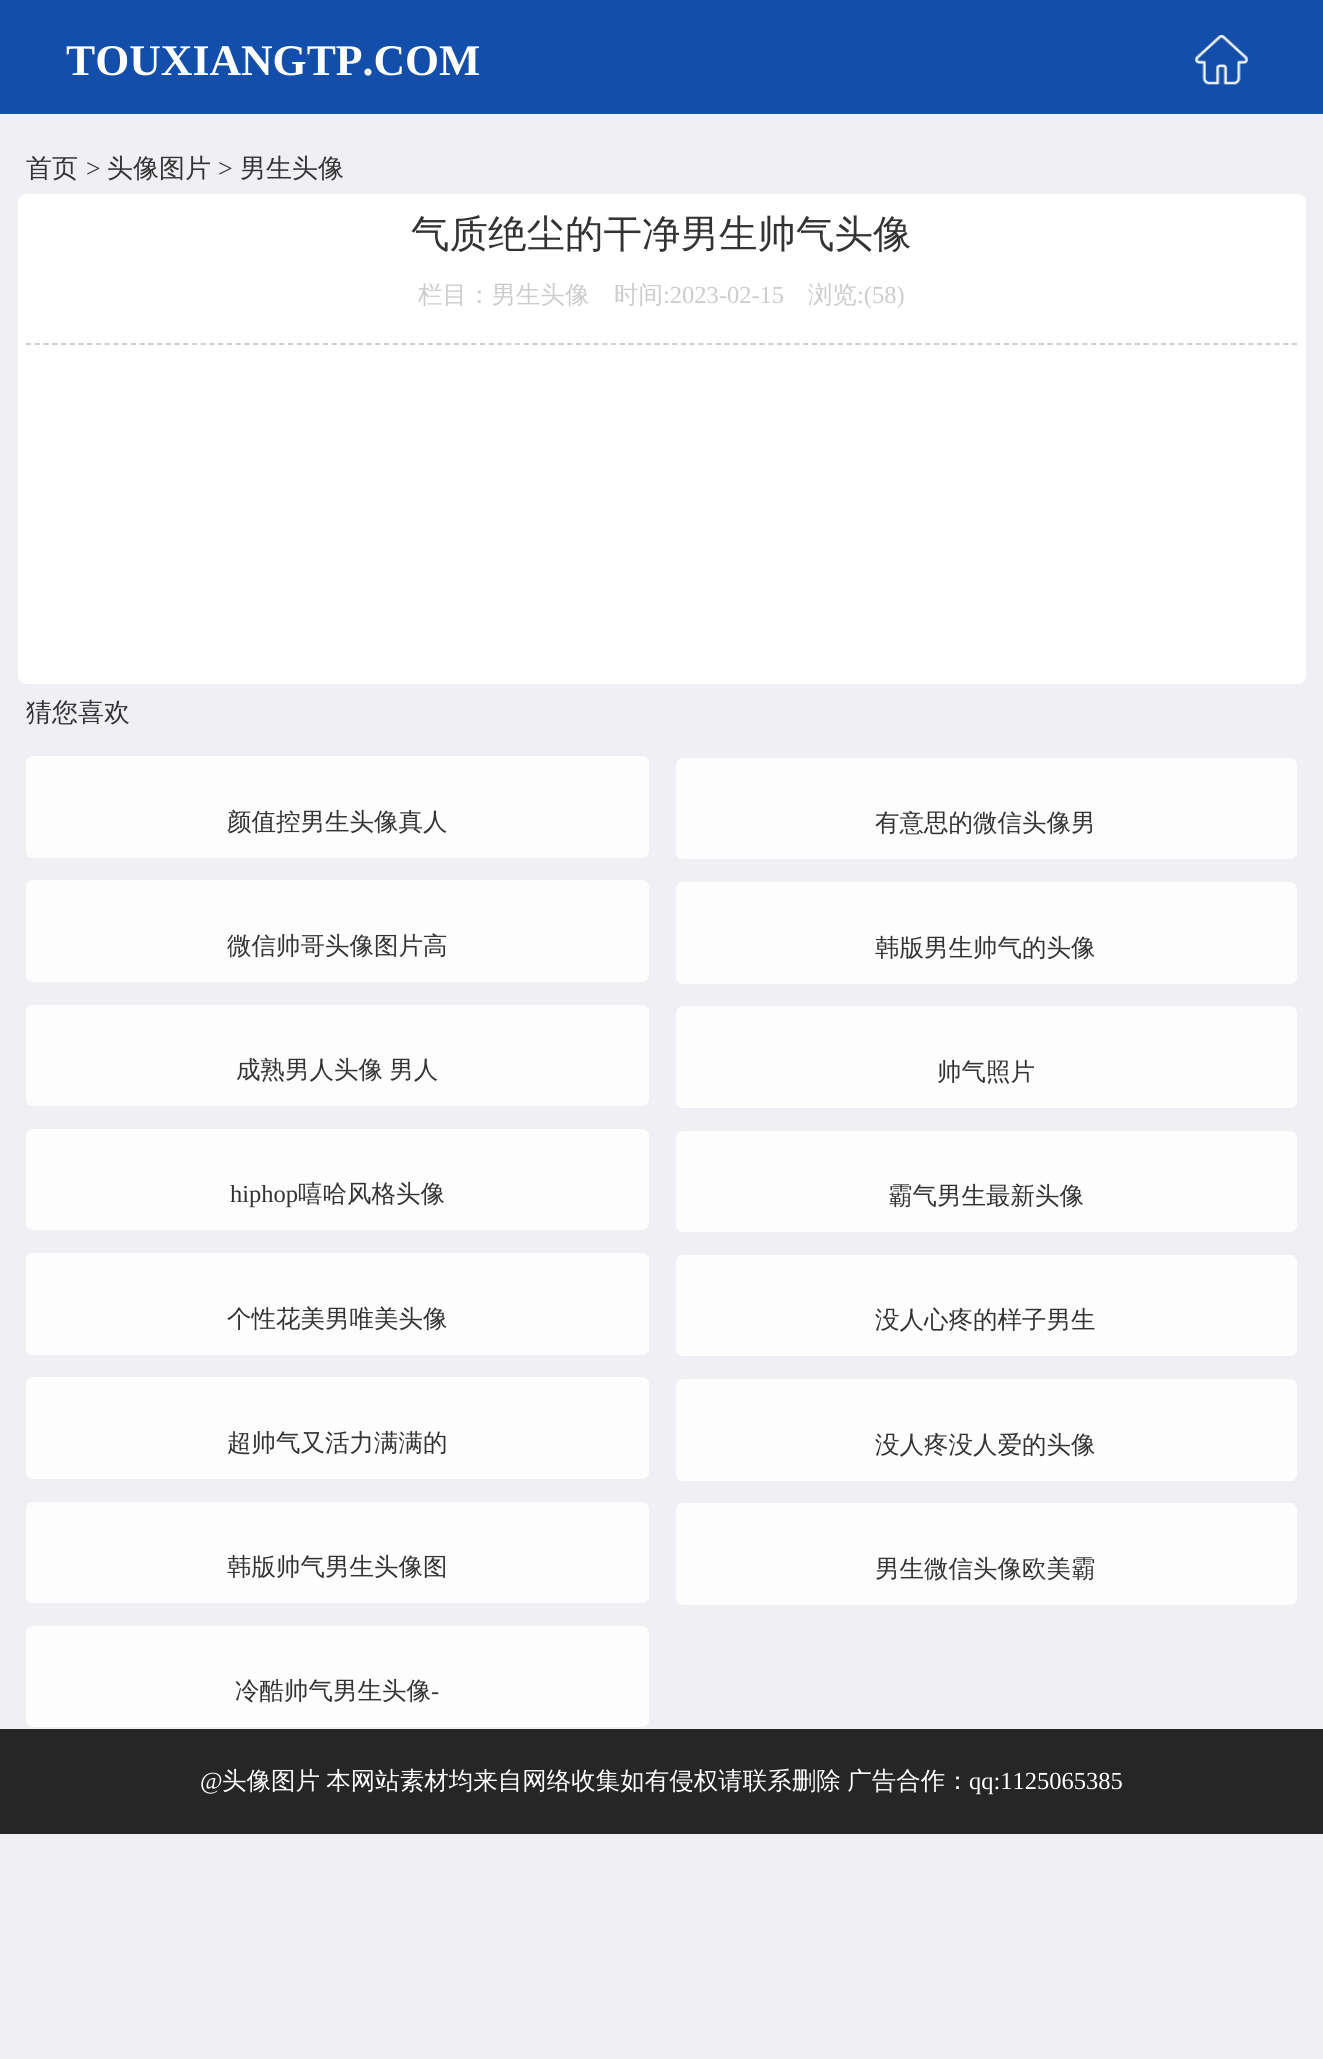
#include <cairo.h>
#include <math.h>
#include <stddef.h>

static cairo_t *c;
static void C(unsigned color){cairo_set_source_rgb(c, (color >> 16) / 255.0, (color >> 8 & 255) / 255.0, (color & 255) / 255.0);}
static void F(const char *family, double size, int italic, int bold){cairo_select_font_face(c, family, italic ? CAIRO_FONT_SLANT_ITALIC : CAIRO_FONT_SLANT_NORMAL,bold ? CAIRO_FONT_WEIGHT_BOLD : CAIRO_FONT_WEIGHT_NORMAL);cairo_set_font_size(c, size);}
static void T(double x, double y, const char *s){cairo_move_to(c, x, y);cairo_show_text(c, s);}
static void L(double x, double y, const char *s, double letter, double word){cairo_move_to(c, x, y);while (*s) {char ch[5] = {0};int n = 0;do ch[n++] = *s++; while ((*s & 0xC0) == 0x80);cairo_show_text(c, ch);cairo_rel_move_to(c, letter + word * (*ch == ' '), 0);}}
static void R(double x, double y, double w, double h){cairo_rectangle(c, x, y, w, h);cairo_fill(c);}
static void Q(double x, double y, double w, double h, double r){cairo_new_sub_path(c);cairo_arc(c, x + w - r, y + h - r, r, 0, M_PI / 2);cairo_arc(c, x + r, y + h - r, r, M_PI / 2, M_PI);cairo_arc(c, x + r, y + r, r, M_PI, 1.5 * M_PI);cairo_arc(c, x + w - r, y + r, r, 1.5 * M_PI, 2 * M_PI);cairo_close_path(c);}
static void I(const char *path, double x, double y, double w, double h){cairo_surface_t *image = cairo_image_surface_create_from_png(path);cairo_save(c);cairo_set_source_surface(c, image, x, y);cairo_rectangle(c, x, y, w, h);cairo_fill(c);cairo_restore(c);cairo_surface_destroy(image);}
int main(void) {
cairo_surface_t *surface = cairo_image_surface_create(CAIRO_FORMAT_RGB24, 1323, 2059);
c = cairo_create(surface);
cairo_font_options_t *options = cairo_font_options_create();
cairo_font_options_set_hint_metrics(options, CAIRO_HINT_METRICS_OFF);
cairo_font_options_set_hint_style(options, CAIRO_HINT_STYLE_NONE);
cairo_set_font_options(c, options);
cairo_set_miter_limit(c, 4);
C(0xf0eff4);
cairo_paint(c);
C(0x134faa);
R(0,0,1323,114);
F("Liberation Serif",43.75,0,1);
C(0xffffff);
T(66,75,"TOUXIANGTP.COM");
I("1.png",1195,35,53,50);
F("WenQuanYi Zen Hei Medium",26,0,0);
C(0x333333);
T(26,177,"首页");
F("Liberation Serif",26,0,0);
T(86,177,">");
F("WenQuanYi Zen Hei Medium",26,0,0);
T(107,177,"头像图片");
F("Liberation Serif",26,0,0);
T(218,177,">");
F("WenQuanYi Zen Hei Medium",26,0,0);
T(240,177,"男生头像");
C(0xffffff);
Q(18,194,1288,490,9);
cairo_fill(c);
F("WenQuanYi Zen Hei Medium",38.5,0,0);
C(0x333333);
T(411,247,"气质绝尘的干净男生帅气头像");
cairo_new_path(c);
cairo_move_to(c,26,344);
cairo_line_to(c,1297,344);
C(0xcccccc);
cairo_set_line_width(c,1.8);
cairo_set_dash(c,(double[]){5.25,3.48},2,0);
cairo_stroke(c);
F("WenQuanYi Zen Hei Medium",24.5,0,0);
T(418,303,"栏目：男生头像");
T(614,303,"时间");
F("Liberation Serif",24.5,0,0);
T(663,303,":2023-02-15");
F("WenQuanYi Zen Hei Medium",24.5,0,0);
T(808,303,"浏览");
F("Liberation Serif",24.5,0,0);
T(857,303,":(58)");
F("WenQuanYi Zen Hei Medium",26,0,0);
C(0x333333);
T(26,721,"猜您喜欢");
C(0xfdfdfd);
Q(26,756,623,102,7);
cairo_fill(c);
F("WenQuanYi Zen Hei Medium",24.5,0,0);
C(0x333333);
T(227,830,"颜值控男生头像真人");
C(0xfdfdfd);
Q(676,758,621,101,7);
cairo_fill(c);
C(0x333333);
T(875,831,"有意思的微信头像男");
C(0xfdfdfd);
Q(26,880,623,102,7);
cairo_fill(c);
C(0x333333);
T(227,954,"微信帅哥头像图片高");
C(0xfdfdfd);
Q(676,882,621,102,7);
cairo_fill(c);
C(0x333333);
T(875,956,"韩版男生帅气的头像");
C(0xfdfdfd);
Q(26,1005,623,101,7);
cairo_fill(c);
C(0x333333);
L(236,1078,"成熟男人头像 男人",0,-1);
C(0xfdfdfd);
Q(676,1006,621,102,7);
cairo_fill(c);
C(0x333333);
T(937,1080,"帅气照片");
C(0xfdfdfd);
Q(26,1129,623,101,7);
cairo_fill(c);
F("Liberation Serif",24.5,0,0);
C(0x333333);
T(230,1202,"hiphop");
F("WenQuanYi Zen Hei Medium",24.5,0,0);
T(298,1202,"嘻哈风格头像");
C(0xfdfdfd);
Q(676,1131,621,101,7);
cairo_fill(c);
C(0x333333);
T(888,1204,"霸气男生最新头像");
C(0xfdfdfd);
Q(26,1253,623,102,7);
cairo_fill(c);
C(0x333333);
T(227,1327,"个性花美男唯美头像");
C(0xfdfdfd);
Q(676,1255,621,101,7);
cairo_fill(c);
C(0x333333);
T(875,1328,"没人心疼的样子男生");
C(0xfdfdfd);
Q(26,1377,623,102,7);
cairo_fill(c);
C(0x333333);
T(227,1451,"超帅气又活力满满的");
C(0xfdfdfd);
Q(676,1379,621,102,7);
cairo_fill(c);
C(0x333333);
T(875,1453,"没人疼没人爱的头像");
C(0xfdfdfd);
Q(26,1502,623,101,7);
cairo_fill(c);
C(0x333333);
T(227,1575,"韩版帅气男生头像图");
C(0xfdfdfd);
Q(676,1503,621,102,7);
cairo_fill(c);
C(0x333333);
T(875,1577,"男生微信头像欧美霸");
C(0xfdfdfd);
Q(26,1626,623,101,7);
cairo_fill(c);
C(0x333333);
T(235,1699,"冷酷帅气男生头像");
F("Liberation Serif",24.5,0,0);
T(431,1699,"-");
C(0x262626);
R(0,1729,1323,105);
C(0xffffff);
T(200,1789,"@");
F("WenQuanYi Zen Hei Medium",24.5,0,0);
L(222,1789,"头像图片 本网站素材均来自网络收集如有侵权请联系删除 广告合作：",0,-1);
F("Liberation Serif",24.5,0,0);
T(969,1789,"qq:1125065385");
cairo_surface_write_to_png(surface, "o.png");
cairo_font_options_destroy(options);
cairo_destroy(c);
cairo_surface_destroy(surface);
return 0;
}
